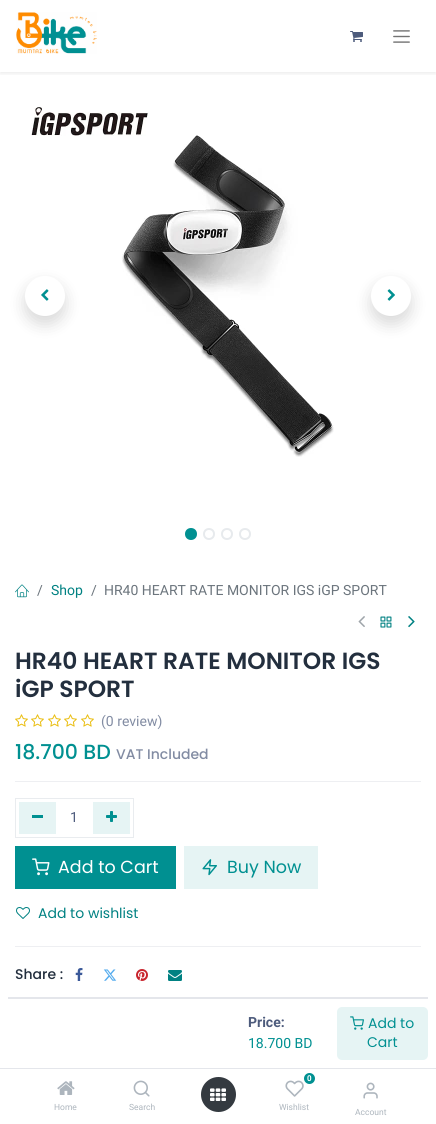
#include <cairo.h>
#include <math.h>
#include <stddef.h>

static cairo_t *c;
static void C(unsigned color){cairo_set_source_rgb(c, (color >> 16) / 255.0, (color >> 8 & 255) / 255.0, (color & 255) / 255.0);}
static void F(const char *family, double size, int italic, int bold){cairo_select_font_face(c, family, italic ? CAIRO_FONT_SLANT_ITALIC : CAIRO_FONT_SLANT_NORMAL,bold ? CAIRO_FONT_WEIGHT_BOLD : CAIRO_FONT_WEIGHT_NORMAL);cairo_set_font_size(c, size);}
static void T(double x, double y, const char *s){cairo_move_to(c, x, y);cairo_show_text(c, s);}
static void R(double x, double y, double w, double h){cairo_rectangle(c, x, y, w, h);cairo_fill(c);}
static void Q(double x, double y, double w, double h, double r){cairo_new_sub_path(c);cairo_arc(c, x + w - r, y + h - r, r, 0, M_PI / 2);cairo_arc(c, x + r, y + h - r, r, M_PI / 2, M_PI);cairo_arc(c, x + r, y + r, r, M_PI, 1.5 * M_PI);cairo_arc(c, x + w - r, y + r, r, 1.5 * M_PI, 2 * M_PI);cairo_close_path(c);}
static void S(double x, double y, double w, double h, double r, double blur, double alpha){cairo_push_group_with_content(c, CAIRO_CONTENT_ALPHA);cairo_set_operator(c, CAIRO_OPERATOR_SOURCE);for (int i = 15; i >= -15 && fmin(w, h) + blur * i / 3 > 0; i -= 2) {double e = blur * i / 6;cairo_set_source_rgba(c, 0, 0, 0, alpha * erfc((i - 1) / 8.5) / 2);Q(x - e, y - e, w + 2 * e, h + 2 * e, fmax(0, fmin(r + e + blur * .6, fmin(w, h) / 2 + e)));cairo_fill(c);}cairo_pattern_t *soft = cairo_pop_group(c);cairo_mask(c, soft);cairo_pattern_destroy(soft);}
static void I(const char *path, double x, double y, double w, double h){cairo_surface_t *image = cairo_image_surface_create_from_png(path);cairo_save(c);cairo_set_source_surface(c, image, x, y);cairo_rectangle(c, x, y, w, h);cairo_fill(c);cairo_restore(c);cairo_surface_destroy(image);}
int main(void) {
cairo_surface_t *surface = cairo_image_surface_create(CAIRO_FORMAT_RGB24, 436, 1124);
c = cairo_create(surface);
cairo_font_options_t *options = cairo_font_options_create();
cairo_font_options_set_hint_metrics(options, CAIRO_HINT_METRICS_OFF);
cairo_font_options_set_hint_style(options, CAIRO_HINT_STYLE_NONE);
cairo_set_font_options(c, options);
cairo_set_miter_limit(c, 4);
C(0xffffff);
cairo_paint(c);
cairo_save(c);
cairo_rectangle(c,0,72,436,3);
cairo_clip(c);
C(0x000000);
S(0,2,436,72,0,2,.07);
cairo_restore(c);
I("1.png",16,12,81,42);
I("2.png",350,31,13,11);
I("3.png",393,30,17,13);
I("4.png",31,107,303,350);
C(0x000000);
S(25,284,40,40,20,8,.15);
C(0xffffff);
cairo_arc(c,45,296,20,0,2 * M_PI);
cairo_fill(c);
I("5.png",41,289,8,12);
C(0x000000);
S(371,284,40,40,20,8,.15);
C(0xffffff);
cairo_arc(c,391,296,20,0,2 * M_PI);
cairo_fill(c);
I("6.png",387,289,8,12);
C(0x009091);
cairo_arc(c,191,534,5,0,2 * M_PI);
cairo_fill_preserve(c);
cairo_stroke(c);
cairo_arc(c,209,534,5,0,2 * M_PI);
C(0xe7eaed);
cairo_stroke(c);
cairo_arc(c,227,534,5,0,2 * M_PI);
cairo_stroke(c);
cairo_arc(c,245,534,5,0,2 * M_PI);
cairo_stroke(c);
I("7.png",15,584,14,14);
F("Roboto",14,0,0);
C(0x6c757d);
T(37,595,"/");
C(0x008182);
T(51,595,"Shop");
C(0x6c757d);
T(91,595,"/");
T(104,595,"HR40 HEART RATE MONITOR IGS iGP SPORT");
I("8.png",358,616,7,11);
I("9.png",380,616,12,12);
I("10.png",408,616,7,12);
F("Poppins SemiBold",23.4,0,0);
C(0x232f3e);
T(15,669,"HR40 HEART RATE MONITOR IGS");
T(15,697,"iGP SPORT");
I("11.png",15,714,13,13);
I("11.png",31,714,13,13);
I("11.png",48,714,13,13);
I("11.png",64,714,13,13);
I("11.png",81,714,13,13);
F("Roboto",14,0,0);
C(0x828ca3);
T(101,726,"(0 review)");
F("Poppins Medium",20.5,0,0);
C(0x009091);
T(15,759,"18.700 BD");
F("Poppins Medium",14,0,0);
C(0x828ca3);
T(116,759,"VAT Included");
C(0xeeeff2);
R(15,781,406,1);
cairo_rectangle(c,15.5,798.5,118,39);
C(0xe9ecef);
cairo_set_line_width(c,1);
cairo_stroke(c);
C(0xe6f4f4);
R(19,802,37,32);
C(0x009091);
R(32,815,11,3);
F("Roboto",14,0,0);
C(0x4d5b7c);
T(70,822,"1");
C(0xe6f4f4);
R(93,802,37,32);
I("12.png",106,811,11,11);
C(0x009091);
R(15,846,161,43);
I("13.png",32,858,18,18);
F("Poppins",17.5,0,0);
C(0xffffff);
T(58,873,"Add to Cart");
C(0xe6f4f4);
R(184,846,134,43);
I("14.png",202,859,15,17);
C(0x009091);
T(227,873,"Buy Now");
I("15.png",16,907,14,12);
F("Poppins",14,0,0);
C(0x008182);
T(38,918,"Add to wishlist");
C(0xeeeff2);
R(15,946,406,1);
F("Poppins Medium",14,0,0);
C(0x232f3e);
T(15,979,"Share :");
I("16.png",75,968,8,13);
I("17.png",103,969,14,12);
I("18.png",136,969,12,12);
I("19.png",168,970,14,11);
C(0xe4e6eb);
R(8,997,420,2);
R(0,1068,436,1);
F("Roboto",14,0,1);
C(0x4d5b7c);
T(248,1027,"Price:");
F("Roboto",14,0,0);
C(0x009091);
T(248,1048,"18.700 BD");
C(0xe6f4f4);
Q(337,1007,91,53,5);
cairo_fill(c);
I("20.png",350,1016,14,14);
F("Poppins",14,0,0);
C(0x009091);
T(368,1028,"Add to");
T(367,1047,"Cart");
I("21.png",57,1081,18,14);
F("Roboto",8.5,0,0);
C(0xadb5bd);
T(54,1110,"Home");
I("22.png",133,1080,17,17);
T(129,1110,"Search");
C(0x343a40);
cairo_new_path(c);
cairo_arc(c,218.5,1094.5,17.5,0,2 * M_PI);
cairo_fill(c);
I("23.png",210,1088,16,13);
C(0x009091);
cairo_arc(c,309.5,1078.5,5.5,0,2 * M_PI);
cairo_fill(c);
F("Roboto",8,0,1);
C(0xffffff);
T(307,1081,"0");
I("24.png",285,1080,19,17);
F("Roboto",8.5,0,0);
C(0xadb5bd);
T(279,1110,"Wishlist");
I("25.png",363,1082,15,17);
T(355,1115,"Account");
cairo_surface_write_to_png(surface, "o.png");
cairo_font_options_destroy(options);
cairo_destroy(c);
cairo_surface_destroy(surface);
return 0;
}
